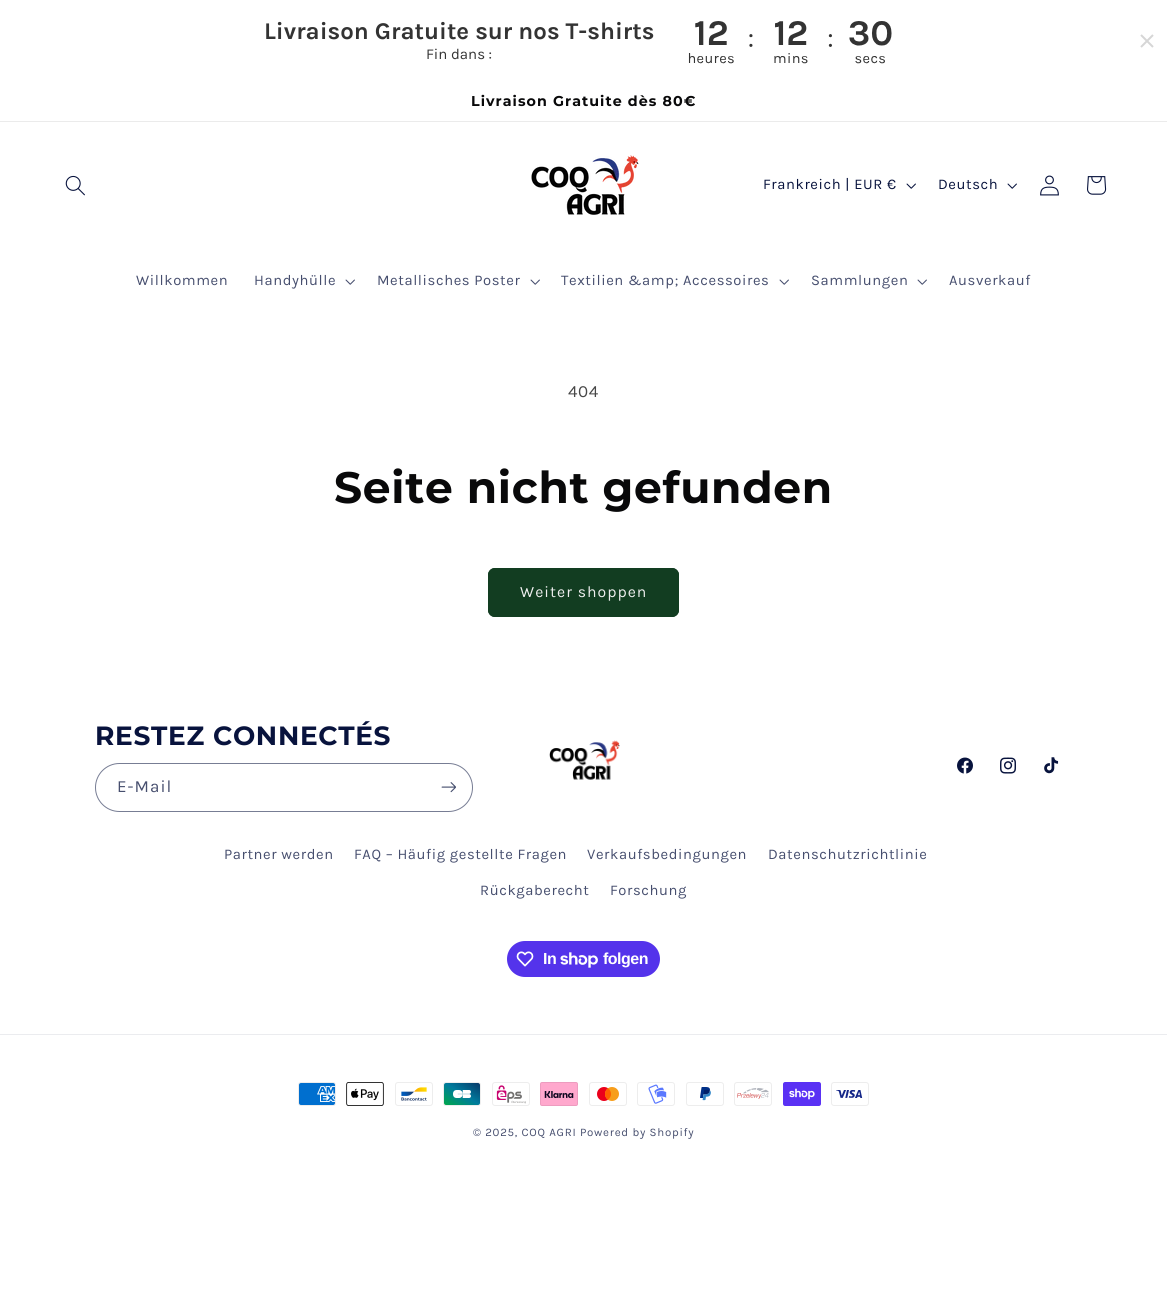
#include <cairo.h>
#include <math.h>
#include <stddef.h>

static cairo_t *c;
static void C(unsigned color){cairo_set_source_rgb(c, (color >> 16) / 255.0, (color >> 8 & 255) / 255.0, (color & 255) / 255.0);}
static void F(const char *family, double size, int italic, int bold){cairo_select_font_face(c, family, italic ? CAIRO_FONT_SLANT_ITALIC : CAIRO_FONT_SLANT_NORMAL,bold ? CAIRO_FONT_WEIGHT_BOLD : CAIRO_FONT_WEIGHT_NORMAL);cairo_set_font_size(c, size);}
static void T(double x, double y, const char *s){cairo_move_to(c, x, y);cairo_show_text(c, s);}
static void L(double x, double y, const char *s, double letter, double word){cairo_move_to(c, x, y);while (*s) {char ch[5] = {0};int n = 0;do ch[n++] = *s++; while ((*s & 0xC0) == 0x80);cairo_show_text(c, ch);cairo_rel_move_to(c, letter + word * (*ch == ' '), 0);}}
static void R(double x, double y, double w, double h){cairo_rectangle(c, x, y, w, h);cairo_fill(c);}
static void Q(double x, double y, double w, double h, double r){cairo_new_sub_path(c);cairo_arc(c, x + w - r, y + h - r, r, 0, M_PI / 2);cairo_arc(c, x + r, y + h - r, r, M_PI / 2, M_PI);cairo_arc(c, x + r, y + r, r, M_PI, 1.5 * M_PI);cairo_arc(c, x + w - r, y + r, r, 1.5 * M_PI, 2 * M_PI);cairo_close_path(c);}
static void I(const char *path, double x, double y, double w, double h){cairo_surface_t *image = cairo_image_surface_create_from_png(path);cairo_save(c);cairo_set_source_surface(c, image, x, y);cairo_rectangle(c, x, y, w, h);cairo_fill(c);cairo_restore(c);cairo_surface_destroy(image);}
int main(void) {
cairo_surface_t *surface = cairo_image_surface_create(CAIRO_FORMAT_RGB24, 1167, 1316);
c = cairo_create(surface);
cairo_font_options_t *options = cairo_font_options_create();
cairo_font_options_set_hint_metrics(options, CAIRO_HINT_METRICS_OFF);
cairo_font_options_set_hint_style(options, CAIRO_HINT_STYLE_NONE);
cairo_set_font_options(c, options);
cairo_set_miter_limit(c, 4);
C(0xffffff);
cairo_paint(c);
F("Karla",24,0,1);
C(0x333333);
T(264,39,"Livraison Gratuite sur nos T-shirts");
F("Karla",15,0,0);
T(426,59,"Fin dans :");
I("1.png",688,21,204,43);
I("2.png",1140,34,14,14);
C(0xebebeb);
R(0,121,1167,1);
F("Montserrat",14.25,0,1);
C(0x09090a);
L(471,106,"Livraison Gratuite dès 80€",1.05,0);
I("3.png",65,175,20,21);
I("4.png",531,155,108,60);
F("Karla",14.75,0,0);
C(0x08133d);
L(763,189,"Frankreich | EUR €",.6,0);
I("5.png",906,183,10,6);
L(938,189,"Deutsch",.6,0);
I("5.png",1007,183,10,6);
I("6.png",1040,175,19,21);
I("7.png",1087,176,20,19);
C(0x464e6e);
L(136,285,"Willkommen",.6,0);
L(254,285,"Handyhülle",.6,0);
I("8.png",345,279,10,6);
L(377,285,"Metallisches Poster",.6,0);
I("8.png",530,279,10,6);
L(561,285,"Textilien &amp; Accessoires",.6,0);
I("8.png",779,279,10,6);
L(811,285,"Sammlungen",.6,0);
I("8.png",917,279,10,6);
L(949,285,"Ausverkauf",.6,0);
F("Karla",17,0,0);
C(0x474747);
L(568,397,"404",.6,0);
F("Montserrat",44,0,1);
C(0x09090a);
L(334,503,"Seite nicht gefunden",.7,0);
C(0x123d21);
Q(488,568,191,49,7);
cairo_fill(c);
Q(488.5,568.5,190,48,6.5);
cairo_set_line_width(c,1);
cairo_stroke(c);
F("Karla",15.75,0,0);
C(0xefefef);
L(520,597,"Weiter shoppen",1.05,0);
F("Montserrat",26.4,0,1);
C(0x08133d);
L(95,745,"RESTEZ CONNECTÉS",.7,0);
Q(95.5,763.5,377,48,24);
C(0x777d94);
cairo_stroke(c);
F("Karla",17,0,0);
C(0x464e6e);
L(117,792,"E-Mail",1.05,0);
I("9.png",441,782,15,11);
I("10.png",549,740,71,40);
I("11.png",957,757,16,17);
I("12.png",1000,757,16,17);
I("13.png",1044,757,15,17);
F("Karla",14.75,0,0);
L(224,859,"Partner werden",.6,0);
L(354,859,"FAQ – Häufig gestellte Fragen",.6,0);
L(587,859,"Verkaufsbedingungen",.6,0);
L(768,859,"Datenschutzrichtlinie",.6,0);
L(480,895,"Rückgaberecht",.6,0);
L(610,895,"Forschung",.6,0);
C(0x5433eb);
Q(507,941,153,36,18);
cairo_fill(c);
I("14.png",516,951,18,16);
F("Liberation Sans",16,0,1);
C(0xffffff);
L(543,964,"In",-.5,0);
I("15.png",560,952,38,16);
L(603,964,"folgen",-.5,0);
C(0xebecef);
R(0,1034,1167,1);
I("16.png",298,1082,38,24);
I("17.png",346,1082,38,24);
I("18.png",395,1082,38,24);
I("19.png",443,1082,38,24);
I("20.png",492,1082,38,24);
I("21.png",540,1082,38,24);
I("22.png",589,1082,38,24);
I("23.png",637,1082,38,24);
I("24.png",686,1082,38,24);
I("25.png",734,1082,38,24);
I("26.png",783,1082,38,24);
I("27.png",831,1082,38,24);
F("Karla",11.5,0,0);
C(0x464e6e);
L(473,1136,"© 2025, COQ AGRI Powered by Shopify",.75,0);
cairo_surface_write_to_png(surface, "o.png");
cairo_font_options_destroy(options);
cairo_destroy(c);
cairo_surface_destroy(surface);
return 0;
}
